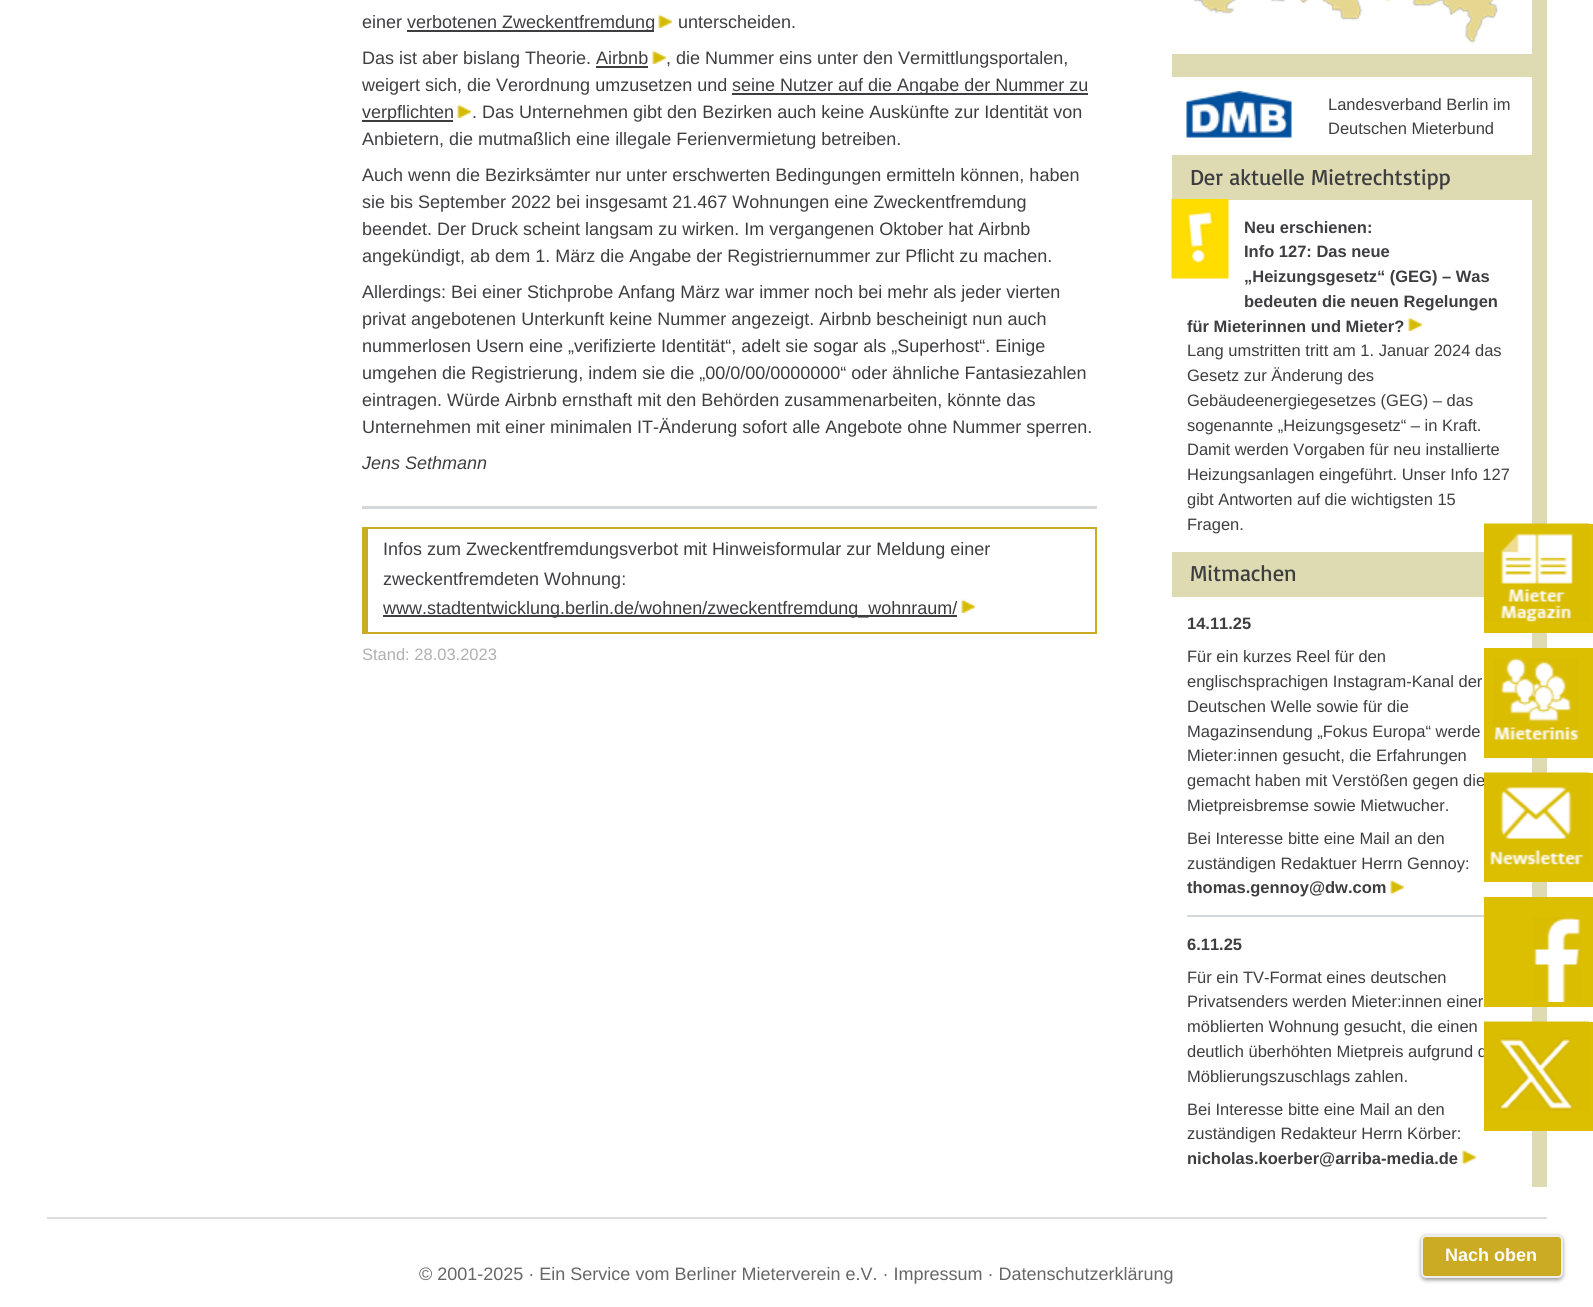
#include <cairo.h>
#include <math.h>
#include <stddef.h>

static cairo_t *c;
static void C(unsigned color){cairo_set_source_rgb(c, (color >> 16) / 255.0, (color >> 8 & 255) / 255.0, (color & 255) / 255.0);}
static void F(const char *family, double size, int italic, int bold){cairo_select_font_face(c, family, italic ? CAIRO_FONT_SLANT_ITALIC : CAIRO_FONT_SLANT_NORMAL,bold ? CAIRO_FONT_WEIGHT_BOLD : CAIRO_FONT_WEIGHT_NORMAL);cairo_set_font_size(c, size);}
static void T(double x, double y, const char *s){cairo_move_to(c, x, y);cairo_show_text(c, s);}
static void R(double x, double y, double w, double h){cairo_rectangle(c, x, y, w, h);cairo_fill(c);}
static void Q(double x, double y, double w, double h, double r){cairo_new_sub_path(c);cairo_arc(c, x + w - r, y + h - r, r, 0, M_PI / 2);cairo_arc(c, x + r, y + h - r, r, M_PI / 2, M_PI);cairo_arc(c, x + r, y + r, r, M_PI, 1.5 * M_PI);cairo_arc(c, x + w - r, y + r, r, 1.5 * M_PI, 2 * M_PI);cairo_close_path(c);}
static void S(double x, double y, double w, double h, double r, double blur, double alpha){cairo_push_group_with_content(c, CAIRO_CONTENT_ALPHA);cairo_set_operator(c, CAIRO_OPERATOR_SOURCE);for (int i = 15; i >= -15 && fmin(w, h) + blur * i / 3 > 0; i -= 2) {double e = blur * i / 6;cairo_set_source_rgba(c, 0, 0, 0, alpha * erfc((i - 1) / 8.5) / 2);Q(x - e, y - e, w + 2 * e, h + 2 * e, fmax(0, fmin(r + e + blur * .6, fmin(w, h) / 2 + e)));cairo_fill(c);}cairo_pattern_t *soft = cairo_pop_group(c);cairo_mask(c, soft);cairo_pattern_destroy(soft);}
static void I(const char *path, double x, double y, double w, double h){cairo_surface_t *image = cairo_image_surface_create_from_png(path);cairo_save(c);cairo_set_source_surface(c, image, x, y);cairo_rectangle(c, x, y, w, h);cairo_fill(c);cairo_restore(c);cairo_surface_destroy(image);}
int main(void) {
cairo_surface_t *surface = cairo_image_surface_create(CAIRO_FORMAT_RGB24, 1593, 1307);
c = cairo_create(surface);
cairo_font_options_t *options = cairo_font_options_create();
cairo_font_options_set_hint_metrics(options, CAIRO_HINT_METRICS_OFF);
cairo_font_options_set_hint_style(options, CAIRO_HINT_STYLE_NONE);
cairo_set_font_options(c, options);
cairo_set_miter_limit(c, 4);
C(0xffffff);
cairo_paint(c);
F("Liberation Sans",18,0,0);
C(0x3e3d40);
T(362,28,"einer");
R(407,30,247,2);
T(407,28,"verbotenen Zweckentfremdung");
I("1.png",658,14,14,14);
T(678,28,"unterscheiden.");
T(362,64,"Das ist aber bislang Theorie. Airbnb");
I("1.png",652,50,14,14);
T(666,64,", die Nummer eins unter den Vermittlungsportalen,");
R(596,66,52,2);
T(362,91,"weigert sich, die Verordnung umzusetzen und");
R(732,93,356,2);
T(732,91,"seine Nutzer auf die Angabe der Nummer zu");
R(362,120,91,2);
T(362,118,"verpflichten");
I("2.png",457,104,14,14);
T(472,118,". Das Unternehmen gibt den Bezirken auch keine Auskünfte zur Identität von");
T(362,145,"Anbietern, die mutmaßlich eine illegale Ferienvermietung betreiben.");
T(362,181,"Auch wenn die Bezirksämter nur unter erschwerten Bedingungen ermitteln können, haben");
T(362,208,"sie bis September 2022 bei insgesamt 21.467 Wohnungen eine Zweckentfremdung");
T(362,235,"beendet. Der Druck scheint langsam zu wirken. Im vergangenen Oktober hat Airbnb");
T(362,262,"angekündigt, ab dem 1. März die Angabe der Registriernummer zur Pflicht zu machen.");
T(362,298,"Allerdings: Bei einer Stichprobe Anfang März war immer noch bei mehr als jeder vierten");
T(362,325,"privat angebotenen Unterkunft keine Nummer angezeigt. Airbnb bescheinigt nun auch");
T(362,352,"nummerlosen Usern eine „verifizierte Identität“, adelt sie sogar als „Superhost“. Einige");
T(362,379,"umgehen die Registrierung, indem sie die „00/0/00/0000000“ oder ähnliche Fantasiezahlen");
T(362,406,"eintragen. Würde Airbnb ernsthaft mit den Behörden zusammenarbeiten, könnte das");
T(362,433,"Unternehmen mit einer minimalen IT-Änderung sofort alle Angebote ohne Nummer sperren.");
F("Liberation Sans",18,1,0);
T(362,469,"Jens Sethmann");
C(0xd4d8da);
R(362,506,735,3);
C(0xcbab23);
R(362,527,735,2);
R(1095,527,2,106);
R(362,632,735,2);
R(362,527,6,106);
F("Liberation Sans",18,0,0);
C(0x3e3d40);
T(383,555,"Infos zum Zweckentfremdungsverbot mit Hinweisformular zur Meldung einer");
T(383,585,"zweckentfremdeten Wohnung:");
R(383,615,574,2);
T(383,614,"www.stadtentwicklung.berlin.de/wohnen/zweckentfremdung_wohnraum/");
I("1.png",961,599,14,14);
F("Liberation Sans",16.5,0,0);
C(0xb0b0b0);
T(362,660,"Stand: 28.03.2023");
C(0xdedbb3);
R(1532,0,15,54);
I("3.png",1193,0,305,44);
R(1172,54,375,23);
R(1532,77,15,78);
I("4.png",1186,91,106,47);
C(0x3e3d40);
T(1328,110,"Landesverband Berlin im");
T(1328,134,"Deutschen Mieterbund");
C(0xdedbb3);
R(1172,155,375,45);
F("Basic",22.5,0,0);
C(0x3e3d40);
T(1190,185,"Der aktuelle Mietrechtstipp");
C(0xdedbb3);
R(1532,200,15,324);
I("5.png",1171,199,58,80);
F("Liberation Sans",16.5,0,1);
C(0x3e3d40);
T(1244,233,"Neu erschienen:");
T(1244,257,"Info 127: Das neue");
T(1244,282,"„Heizungsgesetz“ (GEG) – Was");
T(1244,307,"bedeuten die neuen Regelungen");
T(1187,332,"für Mieterinnen und Mieter?");
I("1.png",1408,317,14,14);
F("Liberation Sans",16.5,0,0);
T(1187,356,"Lang umstritten tritt am 1. Januar 2024 das");
T(1187,381,"Gesetz zur Änderung des");
T(1187,406,"Gebäudeenergiegesetzes (GEG) – das");
T(1187,431,"sogenannte „Heizungsgesetz“ – in Kraft.");
T(1187,455,"Damit werden Vorgaben für neu installierte");
T(1187,480,"Heizungsanlagen eingeführt. Unser Info 127");
T(1187,505,"gibt Antworten auf die wichtigsten 15");
T(1187,530,"Fragen.");
C(0xdedbb3);
R(1172,552,312,45);
F("Basic",22.5,0,0);
C(0x3e3d40);
T(1190,581,"Mitmachen");
C(0xdedbb3);
R(1532,633,15,554);
F("Liberation Sans",16.5,0,1);
C(0x3e3d40);
T(1187,629,"14.11.25");
F("Liberation Sans",16.5,0,0);
T(1187,662,"Für ein kurzes Reel für den");
T(1187,687,"englischsprachigen Instagram-Kanal der");
T(1187,712,"Deutschen Welle sowie für die");
T(1187,737,"Magazinsendung „Fokus Europa“ werde");
T(1187,761,"Mieter:innen gesucht, die Erfahrungen");
T(1187,786,"gemacht haben mit Verstößen gegen die");
T(1187,811,"Mietpreisbremse sowie Mietwucher.");
T(1187,844,"Bei Interesse bitte eine Mail an den");
T(1187,869,"zuständigen Redaktuer Herrn Gennoy:");
F("Liberation Sans",16.5,0,1);
T(1187,893,"thomas.gennoy@dw.com");
I("6.png",1390,879,14,15);
C(0xd4d8da);
R(1187,915,297,2);
C(0x3e3d40);
T(1187,950,"6.11.25");
F("Liberation Sans",16.5,0,0);
T(1187,983,"Für ein TV-Format eines deutschen");
T(1187,1007,"Privatsenders werden Mieter:innen einer");
T(1187,1032,"möblierten Wohnung gesucht, die einen");
T(1187,1057,"deutlich überhöhten Mietpreis aufgrund d");
T(1187,1082,"Möblierungszuschlags zahlen.");
T(1187,1115,"Bei Interesse bitte eine Mail an den");
T(1187,1139,"zuständigen Redakteur Herrn Körber:");
F("Liberation Sans",16.5,0,1);
T(1187,1164,"nicholas.koerber@arriba-media.de");
I("6.png",1462,1149,14,15);
C(0xdddddd);
R(47,1217,1500,2);
F("Liberation Sans",18,0,0);
C(0x666666);
T(419,1280,"© 2001-2025 · Ein Service vom Berliner Mieterverein e.V. · Impressum · Datenschutzerklärung");
C(0xdbbf00);
R(1484,524,109,109);
I("7.png",1484,523,105,99);
R(1484,648,109,110);
I("8.png",1493,658,86,82);
R(1484,773,109,109);
I("9.png",1484,772,105,93);
R(1484,897,109,110);
I("10.png",1533,917,48,85);
R(1484,1022,109,109);
I("11.png",1484,1021,105,90);
C(0x010101);
S(1421,1236,142,44,5,2,.4);
C(0xcbab24);
Q(1422,1236,140,41,4);
cairo_fill_preserve(c);
C(0xeeeeee);
cairo_stroke(c);
F("Liberation Sans",18,0,1);
C(0xffffff);
T(1445,1261,"Nach oben");
cairo_surface_write_to_png(surface, "o.png");
cairo_font_options_destroy(options);
cairo_destroy(c);
cairo_surface_destroy(surface);
return 0;
}
